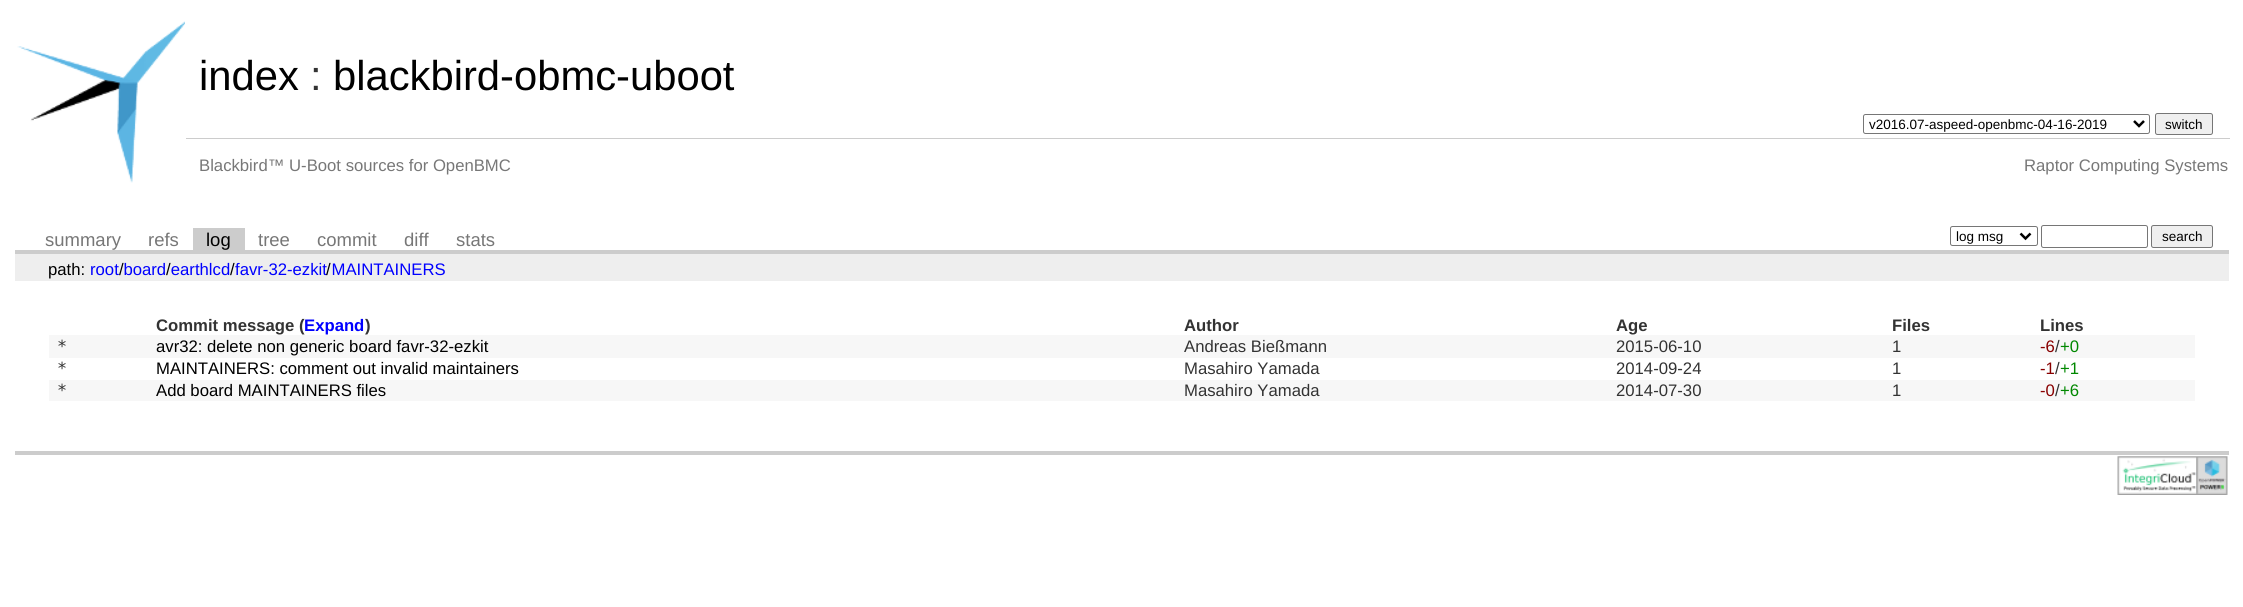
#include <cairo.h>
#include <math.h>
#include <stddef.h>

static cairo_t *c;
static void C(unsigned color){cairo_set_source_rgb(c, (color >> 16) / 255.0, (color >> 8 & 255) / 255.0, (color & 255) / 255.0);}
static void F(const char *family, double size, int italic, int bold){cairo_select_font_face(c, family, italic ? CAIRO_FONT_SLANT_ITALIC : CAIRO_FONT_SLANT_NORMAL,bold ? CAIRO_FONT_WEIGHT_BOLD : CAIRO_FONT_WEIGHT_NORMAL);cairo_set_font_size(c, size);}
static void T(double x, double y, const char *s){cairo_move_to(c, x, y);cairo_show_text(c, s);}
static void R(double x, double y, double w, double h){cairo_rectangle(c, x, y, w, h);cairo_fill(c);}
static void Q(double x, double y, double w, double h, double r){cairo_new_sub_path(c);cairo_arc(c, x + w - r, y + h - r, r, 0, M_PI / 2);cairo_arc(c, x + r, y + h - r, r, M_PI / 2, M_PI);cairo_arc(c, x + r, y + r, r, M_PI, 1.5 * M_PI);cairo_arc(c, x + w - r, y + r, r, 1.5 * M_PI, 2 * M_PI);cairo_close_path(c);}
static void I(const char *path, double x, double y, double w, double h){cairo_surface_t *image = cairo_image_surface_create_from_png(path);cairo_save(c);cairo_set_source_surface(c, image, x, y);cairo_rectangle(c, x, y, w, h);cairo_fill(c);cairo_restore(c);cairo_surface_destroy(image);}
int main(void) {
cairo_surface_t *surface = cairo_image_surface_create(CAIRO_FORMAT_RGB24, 2243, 607);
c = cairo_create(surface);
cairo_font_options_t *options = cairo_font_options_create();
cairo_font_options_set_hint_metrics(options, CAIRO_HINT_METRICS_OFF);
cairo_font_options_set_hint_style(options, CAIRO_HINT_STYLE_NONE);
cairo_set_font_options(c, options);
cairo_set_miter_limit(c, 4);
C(0xffffff);
cairo_paint(c);
I("1.png",17,21,168,162);
F("Liberation Sans",41.75,0,0);
C(0x000000);
T(199,90,"index");
C(0x333333);
T(310,90,":");
C(0x000000);
T(333,90,"blackbird-obmc-uboot");
Q(1863.5,114.5,286,19,2);
C(0x767676);
cairo_set_line_width(c,1);
cairo_stroke(c);
cairo_new_path(c);
cairo_move_to(c,2134,121);
cairo_line_to(c,2139,126);
cairo_line_to(c,2144,121);
C(0x000000);
cairo_set_line_width(c,2.5);
cairo_stroke(c);
F("Liberation Sans",13.5,0,0);
T(1869,129,"v2016.07-aspeed-openbmc-04-16-2019");
C(0xefefef);
Q(2155.5,113.5,57,21,2);
cairo_fill_preserve(c);
C(0x767676);
cairo_set_line_width(c,1);
cairo_stroke(c);
C(0x000000);
T(2165,129,"switch");
F("Liberation Sans",16.7,0,0);
C(0x777777);
T(199,171,"Blackbird™ U-Boot sources for OpenBMC");
C(0xcccccc);
R(186,138,2044,1);
C(0x777777);
T(2024,171,"Raptor Computing Systems");
C(0xcccccc);
R(15,250,2214,4);
F("Liberation Sans",18.5,0,0);
C(0x777777);
T(45,246,"summary");
T(148,246,"refs");
C(0xcccccc);
R(193,228,52,22);
C(0x000000);
T(206,246,"log");
C(0x777777);
T(258,246,"tree");
T(317,246,"commit");
T(404,246,"diff");
T(456,246,"stats");
Q(1950.5,226.5,87,19,2);
C(0x767676);
cairo_stroke(c);
cairo_new_path(c);
cairo_move_to(c,2020.5,233.5);
cairo_line_to(c,2025.5,238.5);
cairo_line_to(c,2030.5,233.5);
C(0x000000);
cairo_set_line_width(c,2.5);
cairo_stroke(c);
F("Liberation Sans",13.5,0,0);
T(1956,241,"log msg");
Q(2041.5,225.5,106,22,2);
C(0x767676);
cairo_set_line_width(c,1);
cairo_stroke(c);
C(0xefefef);
Q(2151.5,225.5,61,22,2);
cairo_fill_preserve(c);
C(0x767676);
cairo_stroke(c);
C(0x000000);
T(2162,241,"search");
C(0xeeeeee);
R(15,254,2214,27);
F("Liberation Sans",16.7,0,0);
C(0x000000);
T(48,275,"path:");
C(0x0000ff);
T(90,275,"root board earthlcd");
C(0x000000);
T(119,275,"/");
T(166,275,"/");
T(230,275,"/");
C(0x0000ff);
T(235,275,"favr-32-ezkit MAINTAINERS");
C(0x000000);
T(326,275,"/");
C(0xcccccc);
R(15,451,2214,4);
F("Liberation Sans",16.7,0,1);
C(0x333333);
T(156,331,"Commit message (");
C(0x0000ff);
T(304,331,"Expand");
C(0x333333);
T(365,331,")");
T(1184,331,"Author");
T(1616,331,"Age");
T(1892,331,"Files");
T(2040,331,"Lines");
C(0xf7f7f7);
R(49,335,2146,23);
F("DejaVu Sans Mono",16.7,0,0);
C(0x333333);
T(57,352,"*");
F("Liberation Sans",16.7,0,0);
C(0x000000);
T(156,352,"avr32: delete non generic board favr-32-ezkit");
C(0x333333);
T(1184,352,"Andreas Bießmann");
T(1616,352,"2015-06-10");
T(1892,352,"1");
C(0x880000);
T(2040,352,"-6");
C(0x333333);
T(2055,352,"/");
C(0x008800);
T(2060,352,"+0");
F("DejaVu Sans Mono",16.7,0,0);
C(0x333333);
T(57,374,"*");
F("Liberation Sans",16.7,0,0);
C(0x000000);
T(156,374,"MAINTAINERS: comment out invalid maintainers");
C(0x333333);
T(1184,374,"Masahiro Yamada");
T(1616,374,"2014-09-24");
T(1892,374,"1");
C(0x880000);
T(2040,374,"-1");
C(0x333333);
T(2055,374,"/");
C(0x008800);
T(2060,374,"+1");
C(0xf7f7f7);
R(49,380,2146,21);
F("DejaVu Sans Mono",16.7,0,0);
C(0x333333);
T(57,396,"*");
F("Liberation Sans",16.7,0,0);
C(0x000000);
T(156,396,"Add board MAINTAINERS files");
C(0x333333);
T(1184,396,"Masahiro Yamada");
T(1616,396,"2014-07-30");
T(1892,396,"1");
C(0x880000);
T(2040,396,"-0");
C(0x333333);
T(2055,396,"/");
C(0x008800);
T(2060,396,"+6");
I("2.png",2117,456,111,39);
cairo_surface_write_to_png(surface, "o.png");
cairo_font_options_destroy(options);
cairo_destroy(c);
cairo_surface_destroy(surface);
return 0;
}
